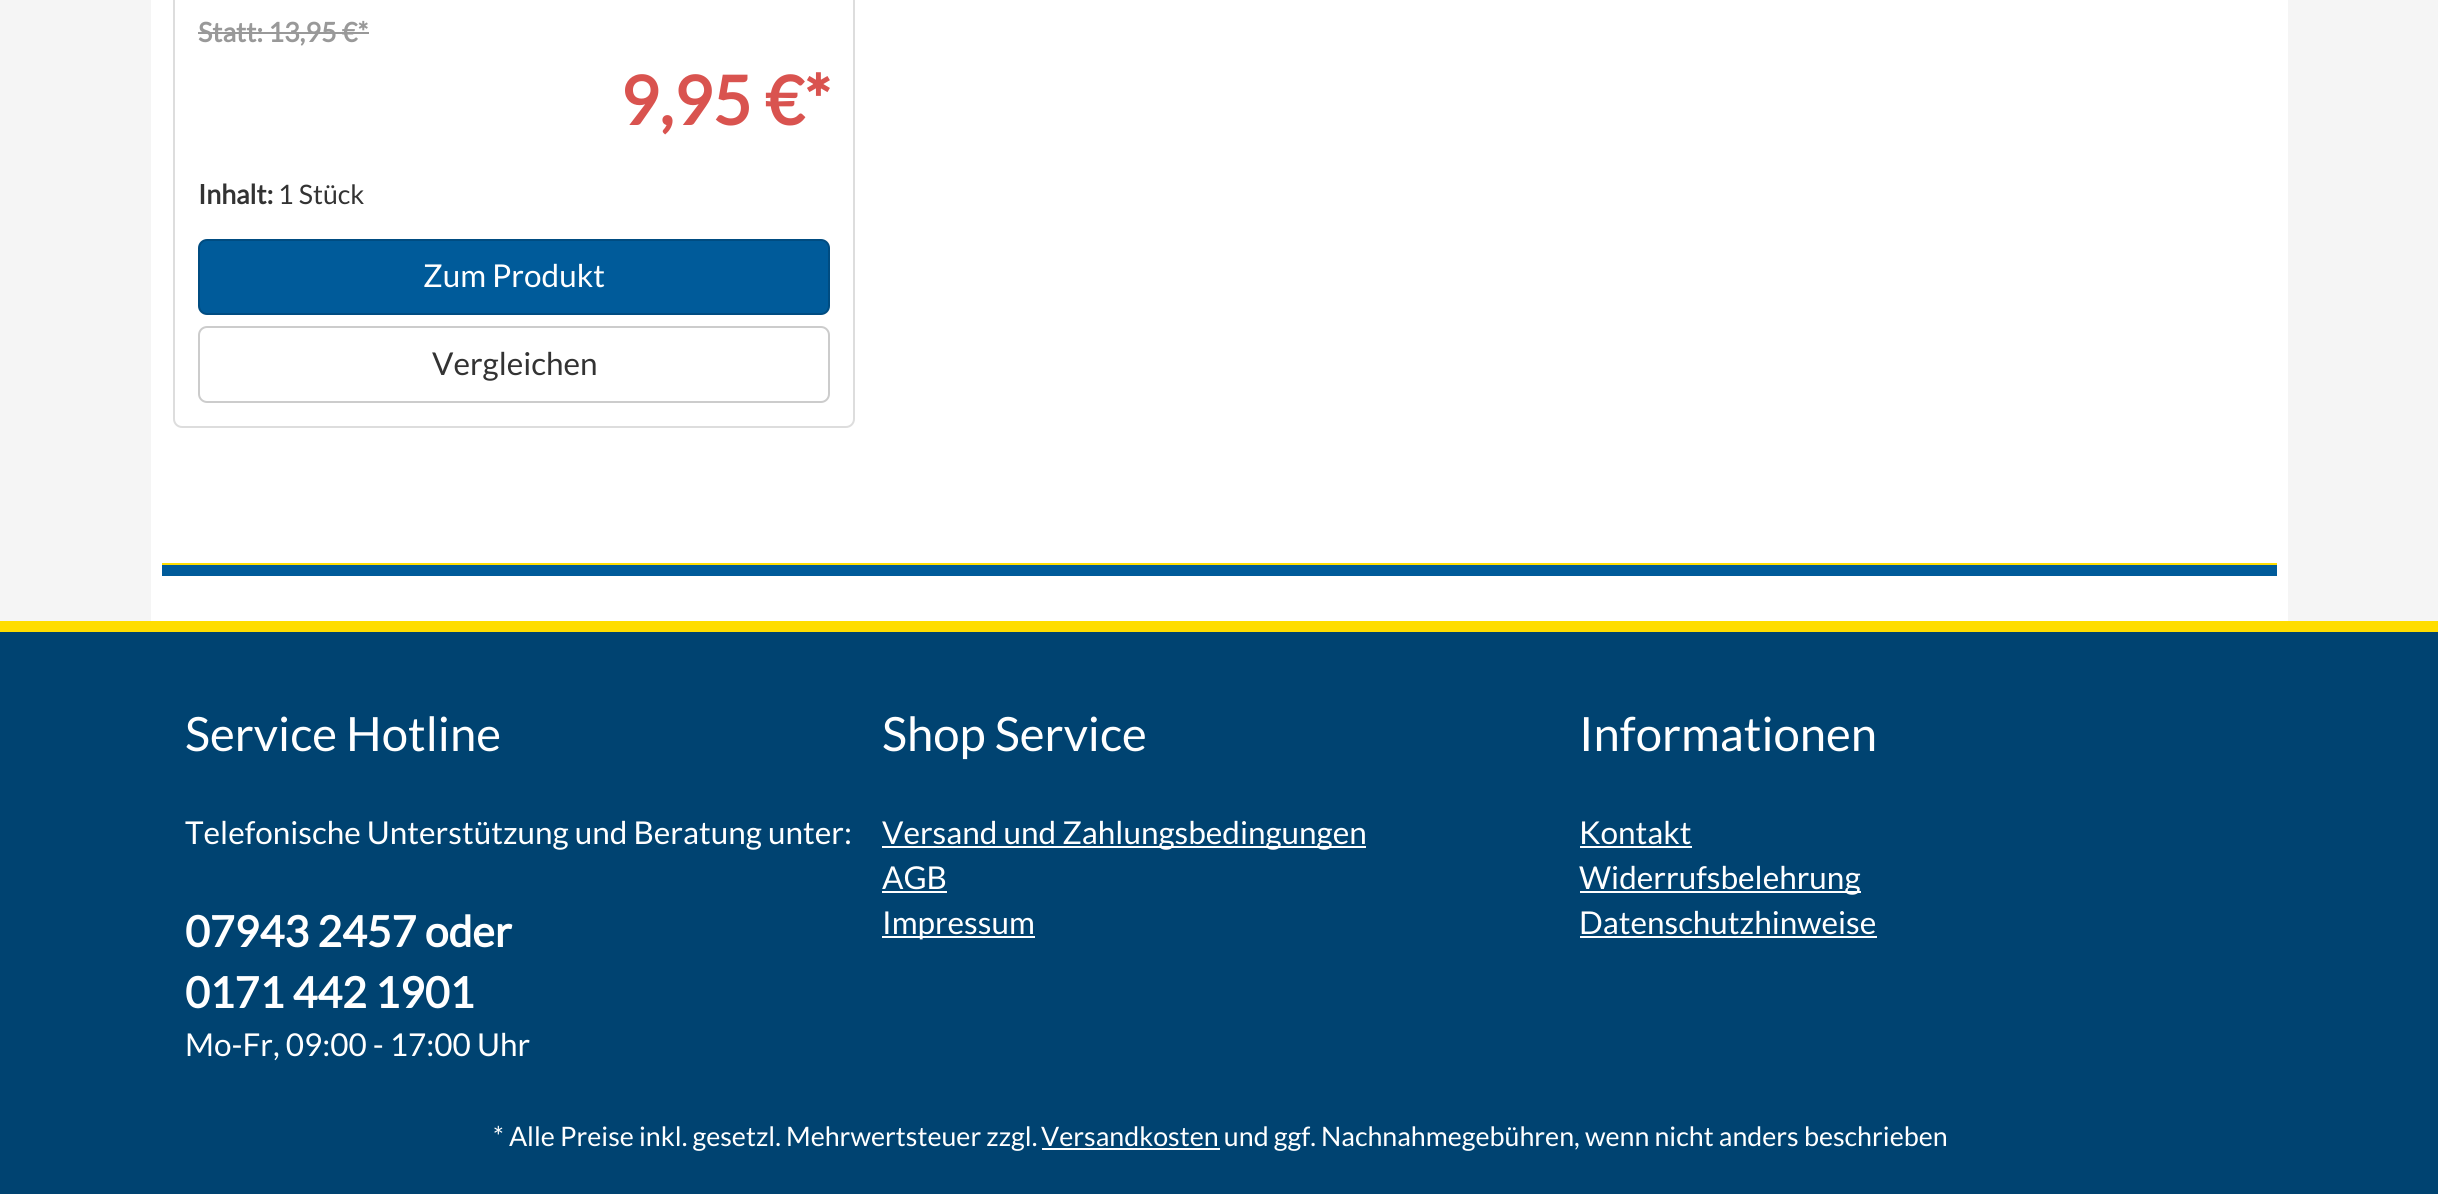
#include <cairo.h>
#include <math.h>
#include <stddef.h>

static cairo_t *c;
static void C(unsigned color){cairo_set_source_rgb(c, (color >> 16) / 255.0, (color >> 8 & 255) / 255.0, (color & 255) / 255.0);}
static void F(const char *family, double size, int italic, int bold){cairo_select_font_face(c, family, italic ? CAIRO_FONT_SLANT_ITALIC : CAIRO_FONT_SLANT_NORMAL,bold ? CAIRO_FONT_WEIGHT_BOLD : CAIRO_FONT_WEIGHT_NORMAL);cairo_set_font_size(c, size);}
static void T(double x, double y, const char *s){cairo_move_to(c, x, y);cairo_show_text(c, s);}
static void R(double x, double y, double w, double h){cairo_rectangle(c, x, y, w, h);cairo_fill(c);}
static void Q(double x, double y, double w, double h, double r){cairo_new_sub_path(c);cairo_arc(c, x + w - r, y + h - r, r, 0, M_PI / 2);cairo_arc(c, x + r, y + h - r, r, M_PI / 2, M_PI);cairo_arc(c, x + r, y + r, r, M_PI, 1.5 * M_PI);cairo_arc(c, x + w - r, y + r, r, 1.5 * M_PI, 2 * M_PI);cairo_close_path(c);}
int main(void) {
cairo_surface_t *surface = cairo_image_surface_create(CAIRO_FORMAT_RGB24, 2438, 1194);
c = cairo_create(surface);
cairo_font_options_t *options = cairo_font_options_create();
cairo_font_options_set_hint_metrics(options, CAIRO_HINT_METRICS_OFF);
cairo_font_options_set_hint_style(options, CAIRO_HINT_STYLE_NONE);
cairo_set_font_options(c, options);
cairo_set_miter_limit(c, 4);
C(0xf5f5f5);
cairo_paint(c);
C(0xffffff);
R(151,0,2137,621);
Q(174,-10,680,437,8);
C(0xdddddd);
cairo_stroke(c);
F("Lato",27,0,1);
C(0x999999);
T(198,42,"Statt: 13,95 €*");
R(198,32,171,2);
F("Lato",67.5,0,1);
C(0xd9534f);
T(620,125,"9,95 €*");
F("Lato",26.8,0,1);
C(0x333333);
T(198,204,"Inhalt:");
F("Lato",26.8,0,0);
T(278,204,"1 Stück");
C(0x005b9a);
Q(199,240,630,74,8);
cairo_fill_preserve(c);
C(0x004c81);
cairo_stroke(c);
F("Lato",31.5,0,0);
C(0xffffff);
T(423,287,"Zum Produkt");
Q(199,327,630,75,8);
C(0xcccccc);
cairo_stroke(c);
C(0x333333);
T(432,375,"Vergleichen");
C(0x005b9a);
R(162,565,2115,11);
C(0xffdd00);
R(162,563,2115,2);
C(0x004371);
R(0,632,2438,562);
C(0xffdd00);
R(0,621,2438,11);
F("Lato",47.25,0,0);
C(0xffffff);
T(185,751,"Service Hotline");
F("Lato",31.5,0,0);
T(185,844,"Telefonische Unterstützung und Beratung unter:");
F("Lato",42.75,0,1);
T(185,947,"07943 2457 oder");
T(185,1008,"0171 442 1901");
F("Lato",31.5,0,0);
T(185,1056,"Mo-Fr, 09:00 - 17:00 Uhr");
F("Lato",47.25,0,0);
T(882,751,"Shop Service");
R(882,846,484,2);
F("Lato",31.5,0,0);
T(882,844,"Versand und Zahlungsbedingungen");
T(882,889,"AGB");
R(882,891,65,2);
R(882,936,153,2);
T(882,934,"Impressum");
F("Lato",47.25,0,0);
T(1579,751,"Informationen");
F("Lato",31.5,0,0);
T(1579,844,"Kontakt");
R(1580,846,112,2);
R(1580,891,281,2);
T(1579,889,"Widerrufsbelehrung");
T(1579,934,"Datenschutzhinweise");
R(1580,936,297,2);
F("Lato",26.8,0,0);
T(493,1146,"* Alle Preise inkl. gesetzl. Mehrwertsteuer zzgl.");
R(1042,1148,178,2);
T(1041,1146,"Versandkosten und ggf. Nachnahmegebühren, wenn nicht anders beschrieben");
cairo_surface_write_to_png(surface, "o.png");
cairo_font_options_destroy(options);
cairo_destroy(c);
cairo_surface_destroy(surface);
return 0;
}
